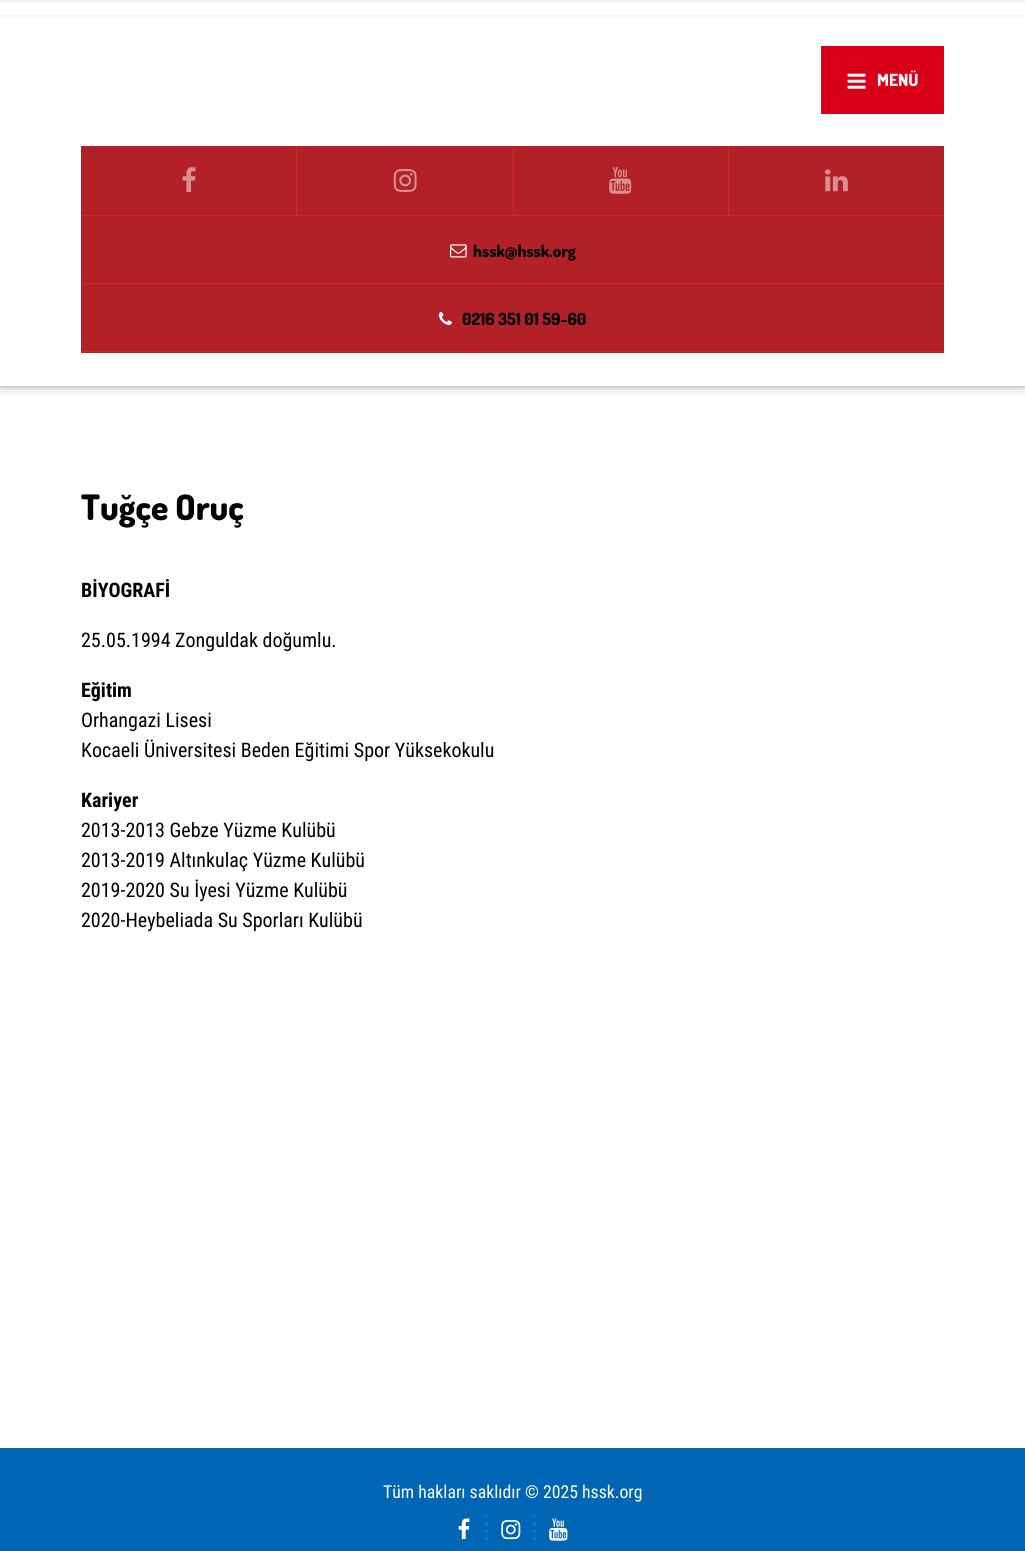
#include <cairo.h>
#include <math.h>
#include <stddef.h>

static cairo_t *c;
static void C(unsigned color){cairo_set_source_rgb(c, (color >> 16) / 255.0, (color >> 8 & 255) / 255.0, (color & 255) / 255.0);}
static void F(const char *family, double size, int italic, int bold){cairo_select_font_face(c, family, italic ? CAIRO_FONT_SLANT_ITALIC : CAIRO_FONT_SLANT_NORMAL,bold ? CAIRO_FONT_WEIGHT_BOLD : CAIRO_FONT_WEIGHT_NORMAL);cairo_set_font_size(c, size);}
static void T(double x, double y, const char *s){cairo_move_to(c, x, y);cairo_show_text(c, s);}
static void R(double x, double y, double w, double h){cairo_rectangle(c, x, y, w, h);cairo_fill(c);}
static void Q(double x, double y, double w, double h, double r){cairo_new_sub_path(c);cairo_arc(c, x + w - r, y + h - r, r, 0, M_PI / 2);cairo_arc(c, x + r, y + h - r, r, M_PI / 2, M_PI);cairo_arc(c, x + r, y + r, r, M_PI, 1.5 * M_PI);cairo_arc(c, x + w - r, y + r, r, 1.5 * M_PI, 2 * M_PI);cairo_close_path(c);}
static void S(double x, double y, double w, double h, double r, double blur, double alpha){cairo_push_group_with_content(c, CAIRO_CONTENT_ALPHA);cairo_set_operator(c, CAIRO_OPERATOR_SOURCE);for (int i = 15; i >= -15 && fmin(w, h) + blur * i / 3 > 0; i -= 2) {double e = blur * i / 6;cairo_set_source_rgba(c, 0, 0, 0, alpha * erfc((i - 1) / 8.5) / 2);Q(x - e, y - e, w + 2 * e, h + 2 * e, fmax(0, fmin(r + e + blur * .6, fmin(w, h) / 2 + e)));cairo_fill(c);}cairo_pattern_t *soft = cairo_pop_group(c);cairo_mask(c, soft);cairo_pattern_destroy(soft);}
static void I(const char *path, double x, double y, double w, double h){cairo_surface_t *image = cairo_image_surface_create_from_png(path);cairo_save(c);cairo_set_source_surface(c, image, x, y);cairo_rectangle(c, x, y, w, h);cairo_fill(c);cairo_restore(c);cairo_surface_destroy(image);}
int main(void) {
cairo_surface_t *surface = cairo_image_surface_create(CAIRO_FORMAT_RGB24, 1025, 1551);
c = cairo_create(surface);
cairo_font_options_t *options = cairo_font_options_create();
cairo_font_options_set_hint_metrics(options, CAIRO_HINT_METRICS_OFF);
cairo_font_options_set_hint_style(options, CAIRO_HINT_STYLE_NONE);
cairo_set_font_options(c, options);
cairo_set_miter_limit(c, 4);
cairo_pattern_t *gradient;
C(0xffffff);
cairo_paint(c);
C(0x000000);
S(0,-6,1025,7,0,2,.1);
cairo_save(c);
cairo_rectangle(c,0,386,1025,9);
cairo_clip(c);
S(0,4,1025,386,0,4.5,.15);
cairo_restore(c);
cairo_save(c);
cairo_rectangle(c,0,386,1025,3);
cairo_clip(c);
S(0,-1,1025,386,0,2.5,.35);
cairo_restore(c);
C(0xf7f7f7);
R(0,15,1025,3);
C(0xd80019);
R(821,46,123,68);
I("1.png",847,73,19,16);
F("Dosis ExtraBold",16.75,0,0);
C(0xf7f7f7);
T(877,86,"MENÜ");
C(0xd4272f);
R(81,215,863,1);
C(0xb22127);
R(81,146,215,69);
I("2.png",182,167,14,25);
R(297,146,216,69);
C(0xd4272f);
R(296,146,1,69);
I("3.png",393,169,24,23);
C(0xb22127);
R(514,146,214,69);
C(0xd4272f);
R(513,146,1,69);
I("4.png",609,167,23,27);
C(0xb22127);
R(729,146,215,69);
C(0xd4272f);
R(728,146,1,69);
I("5.png",825,169,23,23);
C(0xb22127);
R(81,216,863,67);
C(0xd4272f);
R(81,283,863,1);
I("6.png",450,244,17,14);
C(0x000000);
T(473,257,"hssk@hssk.org");
C(0xb22127);
R(81,284,863,69);
C(0xd4272f);
R(81,351,863,1);
I("7.png",438,311,14,14);
C(0x000000);
T(462,325,"0216 351 01 59-60");
F("Dosis ExtraBold",35,0,0);
T(81,520,"Tuğçe Oruç");
F("Roboto Condensed",20,0,1);
T(81,597,"BİYOGRAFİ");
F("Roboto Condensed",20,0,0);
T(81,647,"25.05.1994 Zonguldak doğumlu.");
F("Roboto Condensed",20,0,1);
T(81,697,"Eğitim");
F("Roboto Condensed",20,0,0);
T(81,727,"Orhangazi Lisesi");
T(81,757,"Kocaeli Üniversitesi Beden Eğitimi Spor Yüksekokulu");
F("Roboto Condensed",20,0,1);
T(81,807,"Kariyer");
F("Roboto Condensed",20,0,0);
T(81,837,"2013-2013 Gebze Yüzme Kulübü");
T(81,867,"2013-2019 Altınkulaç Yüzme Kulübü");
T(81,897,"2019-2020 Su İyesi Yüzme Kulübü");
T(81,927,"2020-Heybeliada Su Sporları Kulübü");
C(0x0065b2);
R(0,1448,1025,103);
F("Roboto Condensed",17.75,0,0);
C(0xffffff);
T(383,1498,"Tüm hakları saklıdır © 2025 hssk.org");
I("8.png",458,1518,12,22);
gradient = cairo_pattern_create_linear(486,1515,486,1545);
cairo_pattern_add_color_stop_rgba(gradient,0,0.102,0.455,0.729,1);
cairo_pattern_add_color_stop_rgba(gradient,.08,0.102,0.455,0.729,1);
cairo_pattern_add_color_stop_rgba(gradient,.08,0,0.396,0.698,1);
cairo_pattern_add_color_stop_rgba(gradient,.25,0,0.396,0.698,1);
cairo_pattern_add_color_stop_rgba(gradient,.25,0.102,0.455,0.729,1);
cairo_pattern_add_color_stop_rgba(gradient,.33,0.102,0.455,0.729,1);
cairo_pattern_add_color_stop_rgba(gradient,.33,0,0.396,0.698,1);
cairo_pattern_add_color_stop_rgba(gradient,.5,0,0.396,0.698,1);
cairo_pattern_add_color_stop_rgba(gradient,.5,0.102,0.455,0.729,1);
cairo_pattern_add_color_stop_rgba(gradient,.58,0.102,0.455,0.729,1);
cairo_pattern_add_color_stop_rgba(gradient,.58,0,0.396,0.698,1);
cairo_pattern_add_color_stop_rgba(gradient,.75,0,0.396,0.698,1);
cairo_pattern_add_color_stop_rgba(gradient,.75,0.102,0.455,0.729,1);
cairo_pattern_add_color_stop_rgba(gradient,.83,0.102,0.455,0.729,1);
cairo_pattern_add_color_stop_rgba(gradient,.83,0,0.396,0.698,1);
cairo_pattern_add_color_stop_rgba(gradient,1,0,0.396,0.698,1);
cairo_set_source(c,gradient);
cairo_pattern_destroy(gradient);
R(485,1515,3,26);
I("9.png",501,1520,20,20);
gradient = cairo_pattern_create_linear(534,1515,534,1545);
cairo_pattern_add_color_stop_rgba(gradient,0,0.102,0.455,0.729,1);
cairo_pattern_add_color_stop_rgba(gradient,.08,0.102,0.455,0.729,1);
cairo_pattern_add_color_stop_rgba(gradient,.08,0,0.396,0.698,1);
cairo_pattern_add_color_stop_rgba(gradient,.25,0,0.396,0.698,1);
cairo_pattern_add_color_stop_rgba(gradient,.25,0.102,0.455,0.729,1);
cairo_pattern_add_color_stop_rgba(gradient,.33,0.102,0.455,0.729,1);
cairo_pattern_add_color_stop_rgba(gradient,.33,0,0.396,0.698,1);
cairo_pattern_add_color_stop_rgba(gradient,.5,0,0.396,0.698,1);
cairo_pattern_add_color_stop_rgba(gradient,.5,0.102,0.455,0.729,1);
cairo_pattern_add_color_stop_rgba(gradient,.58,0.102,0.455,0.729,1);
cairo_pattern_add_color_stop_rgba(gradient,.58,0,0.396,0.698,1);
cairo_pattern_add_color_stop_rgba(gradient,.75,0,0.396,0.698,1);
cairo_pattern_add_color_stop_rgba(gradient,.75,0.102,0.455,0.729,1);
cairo_pattern_add_color_stop_rgba(gradient,.83,0.102,0.455,0.729,1);
cairo_pattern_add_color_stop_rgba(gradient,.83,0,0.396,0.698,1);
cairo_pattern_add_color_stop_rgba(gradient,1,0,0.396,0.698,1);
cairo_set_source(c,gradient);
cairo_pattern_destroy(gradient);
R(533,1515,3,26);
I("10.png",549,1518,19,23);
cairo_surface_write_to_png(surface, "o.png");
cairo_font_options_destroy(options);
cairo_destroy(c);
cairo_surface_destroy(surface);
return 0;
}
